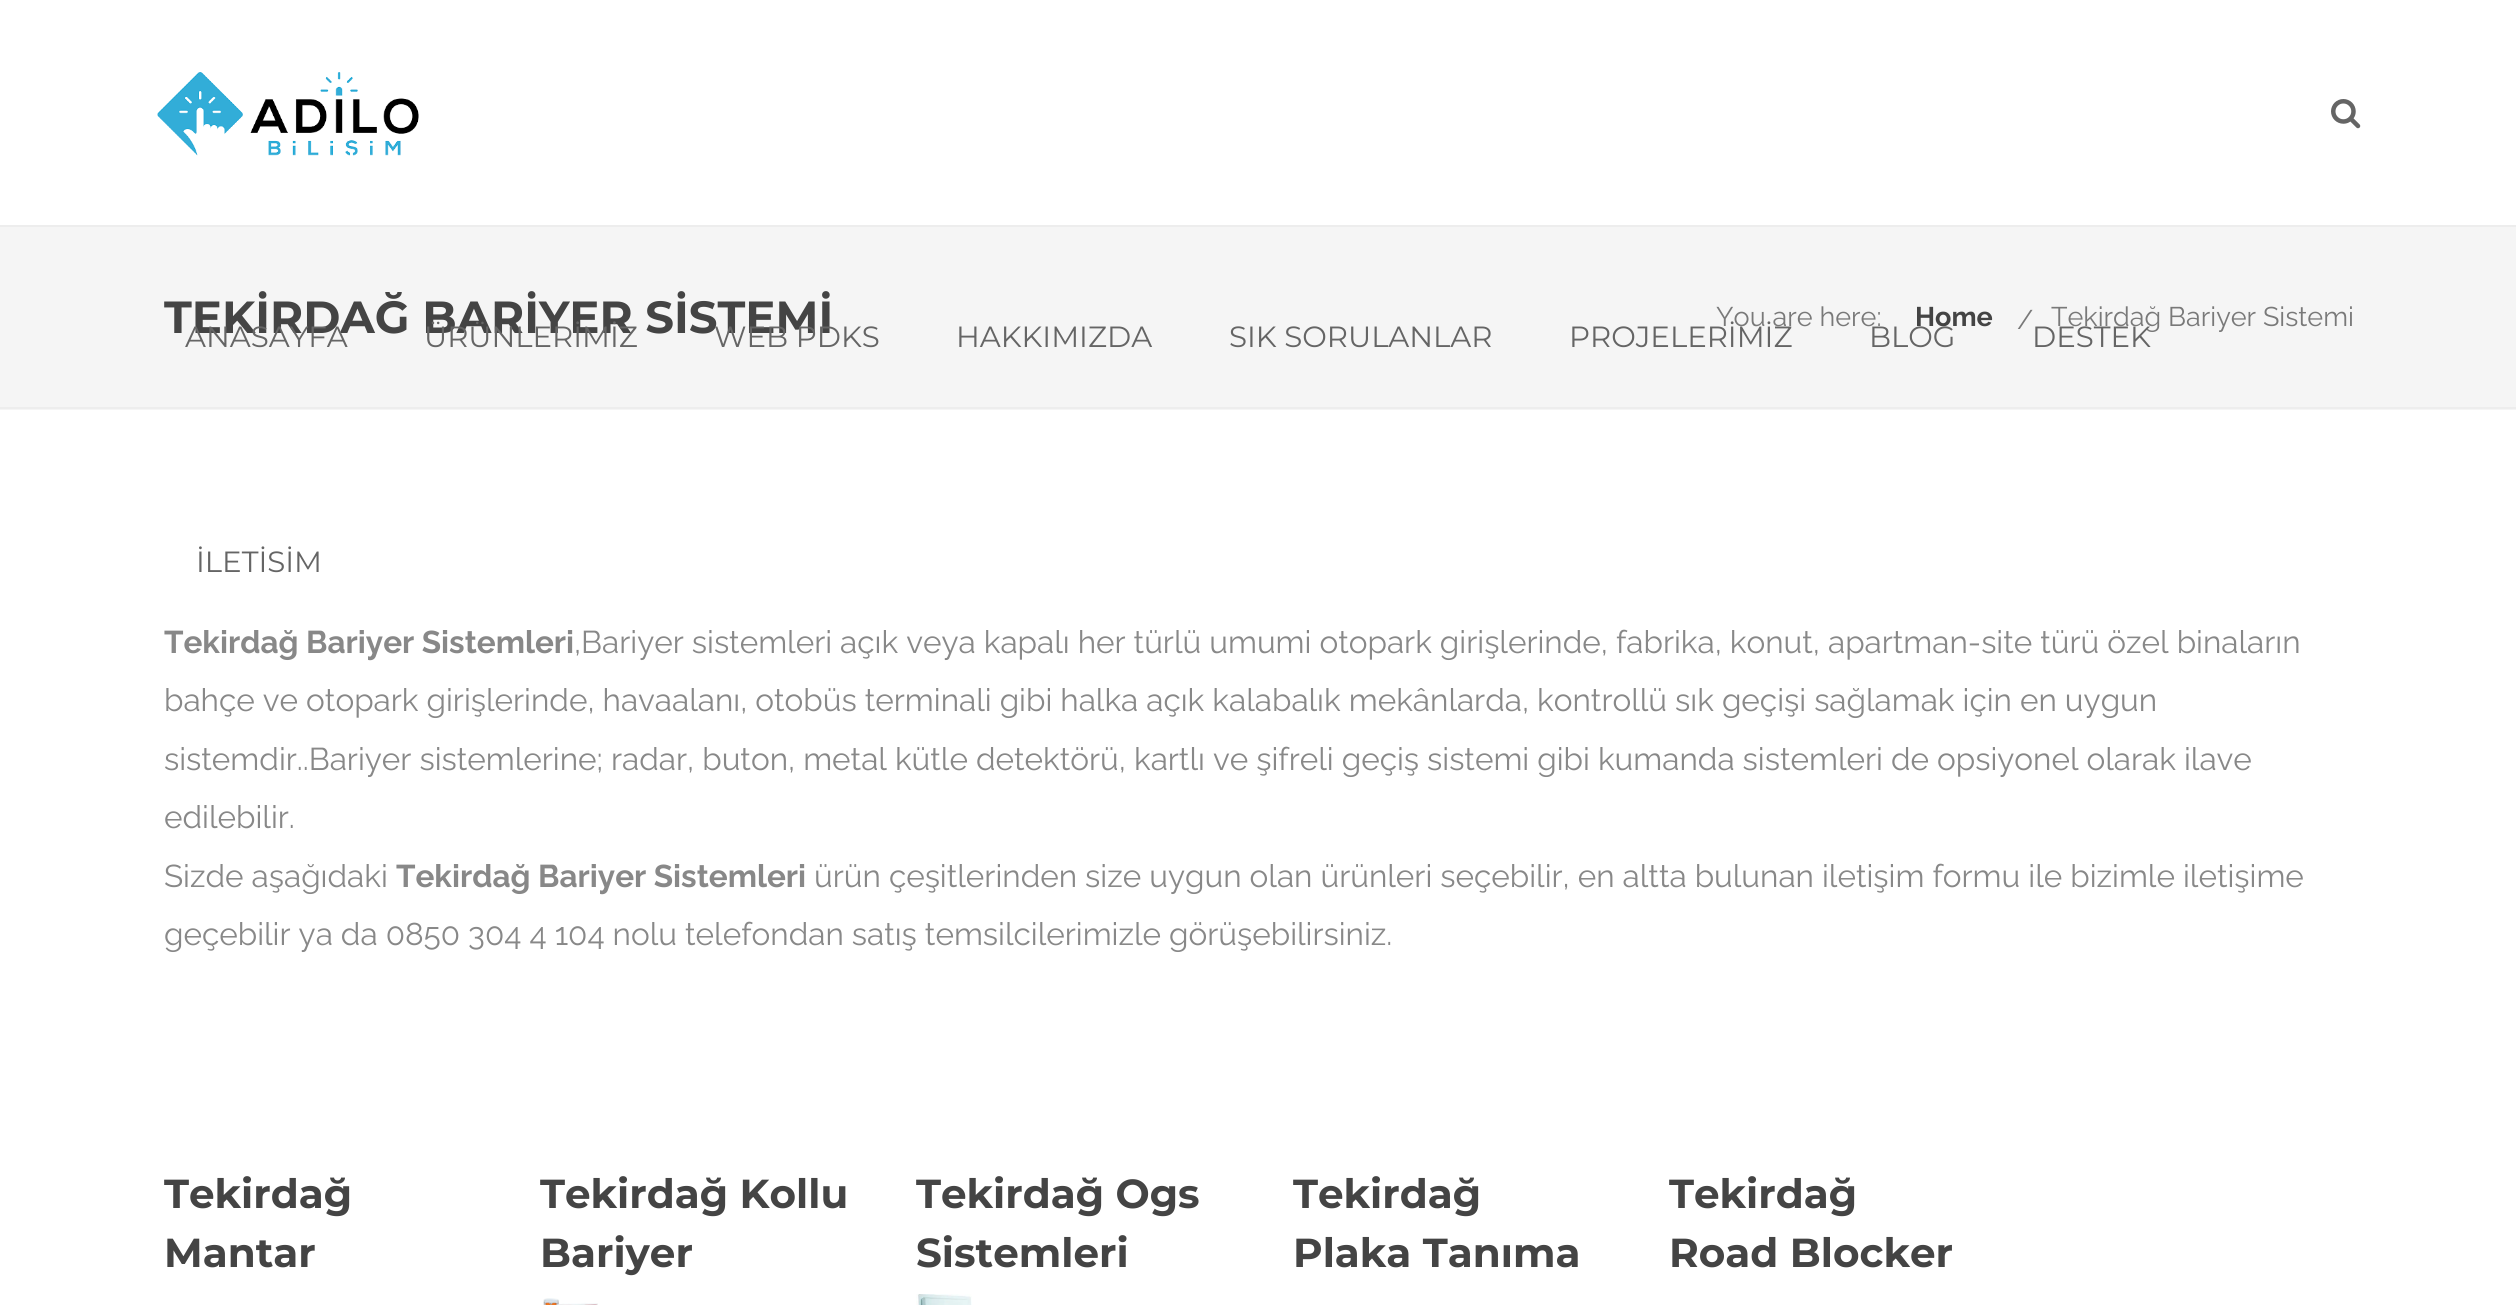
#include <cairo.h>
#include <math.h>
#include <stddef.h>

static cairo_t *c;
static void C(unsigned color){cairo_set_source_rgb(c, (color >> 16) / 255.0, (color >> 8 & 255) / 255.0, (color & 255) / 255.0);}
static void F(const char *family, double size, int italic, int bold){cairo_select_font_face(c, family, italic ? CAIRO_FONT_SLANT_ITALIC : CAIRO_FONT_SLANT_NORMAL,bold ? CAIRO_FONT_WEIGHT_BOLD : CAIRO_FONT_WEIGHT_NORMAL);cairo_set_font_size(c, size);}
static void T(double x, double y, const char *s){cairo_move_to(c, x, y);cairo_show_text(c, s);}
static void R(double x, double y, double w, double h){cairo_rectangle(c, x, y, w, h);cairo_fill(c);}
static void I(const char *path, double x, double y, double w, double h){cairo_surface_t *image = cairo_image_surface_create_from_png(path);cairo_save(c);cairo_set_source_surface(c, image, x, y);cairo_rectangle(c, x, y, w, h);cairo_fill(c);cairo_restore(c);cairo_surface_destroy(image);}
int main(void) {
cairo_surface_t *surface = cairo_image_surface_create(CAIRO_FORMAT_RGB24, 2516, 1305);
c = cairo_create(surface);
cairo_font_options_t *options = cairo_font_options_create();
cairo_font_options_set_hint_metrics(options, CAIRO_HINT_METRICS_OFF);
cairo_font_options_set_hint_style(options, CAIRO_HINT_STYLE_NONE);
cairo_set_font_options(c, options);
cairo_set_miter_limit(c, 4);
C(0xffffff);
cairo_paint(c);
C(0xf5f5f5);
R(0,227,2516,183);
C(0xededed);
R(0,407,2516,2);
F("Montserrat",45,0,1);
C(0x444444);
T(164,333,"TEKİRDAĞ BARİYER SİSTEMİ");
F("Raleway",27,0,0);
C(0x797979);
T(1716,326,"You are here:");
F("Raleway",27,0,1);
C(0x444444);
T(1915,326,"Home");
F("Raleway",27,0,0);
C(0x797979);
T(2017,329,"/");
T(2051,326,"Tekirdağ Bariyer Sistemi");
C(0xededed);
R(0,225,2516,2);
I("1.png",157,72,262,84);
I("2.png",2331,99,30,30);
F("Montserrat",29.25,0,0);
C(0x656565);
T(185,347,"ANASAYFA");
T(424,347,"ÜRÜNLERİMİZ");
T(714,347,"WEB PDKS");
T(956,347,"HAKKIMIZDA");
T(1229,347,"SIK SORULANLAR");
T(1569,347,"PROJELERİMİZ");
T(1869,347,"BLOG");
T(2032,347,"DESTEK");
T(196,572,"İLETİSİM");
F("Raleway",31.5,0,1);
C(0x888888);
T(164,653,"Tekirdağ Bariyer Sistemleri");
F("Raleway",31.5,0,0);
T(574,653,",Bariyer sistemleri açık veya kapalı her türlü umumi otopark girişlerinde, fabrika, konut, apartman-site türü özel binaların");
T(164,711,"bahçe ve otopark girişlerinde, havaalanı, otobüs terminali gibi halka açık kalabalık mekânlarda, kontrollü sık geçişi sağlamak için en uygun");
T(164,770,"sistemdir..Bariyer sistemlerine; radar, buton, metal kütle detektörü, kartlı ve şifreli geçiş sistemi gibi kumanda sistemleri de opsiyonel olarak ilave");
T(164,828,"edilebilir.");
T(164,887,"Sizde aşağıdaki");
F("Raleway",31.5,0,1);
T(396,887,"Tekirdağ Bariyer Sistemleri");
F("Raleway",31.5,0,0);
T(814,887,"ürün çeşitlerinden size uygun olan ürünleri seçebilir, en altta bulunan iletişim formu ile bizimle iletişime");
T(164,945,"geçebilir ya da 0850 304 4 104 nolu telefondan satış temsilcilerimizle görüşebilirsiniz.");
F("Montserrat",40.5,0,1);
C(0x444444);
T(164,1208,"Tekirdağ");
T(164,1267,"Mantar");
T(540,1208,"Tekirdağ Kollu");
T(540,1267,"Bariyer");
I("3.png",543,1298,55,7);
T(916,1208,"Tekirdağ Ogs");
T(916,1267,"Sistemleri");
I("4.png",916,1294,56,11);
T(1293,1208,"Tekirdağ");
T(1293,1267,"Plaka Tanıma");
T(1669,1208,"Tekirdağ");
T(1669,1267,"Road Blocker");
cairo_surface_write_to_png(surface, "o.png");
cairo_font_options_destroy(options);
cairo_destroy(c);
cairo_surface_destroy(surface);
return 0;
}
